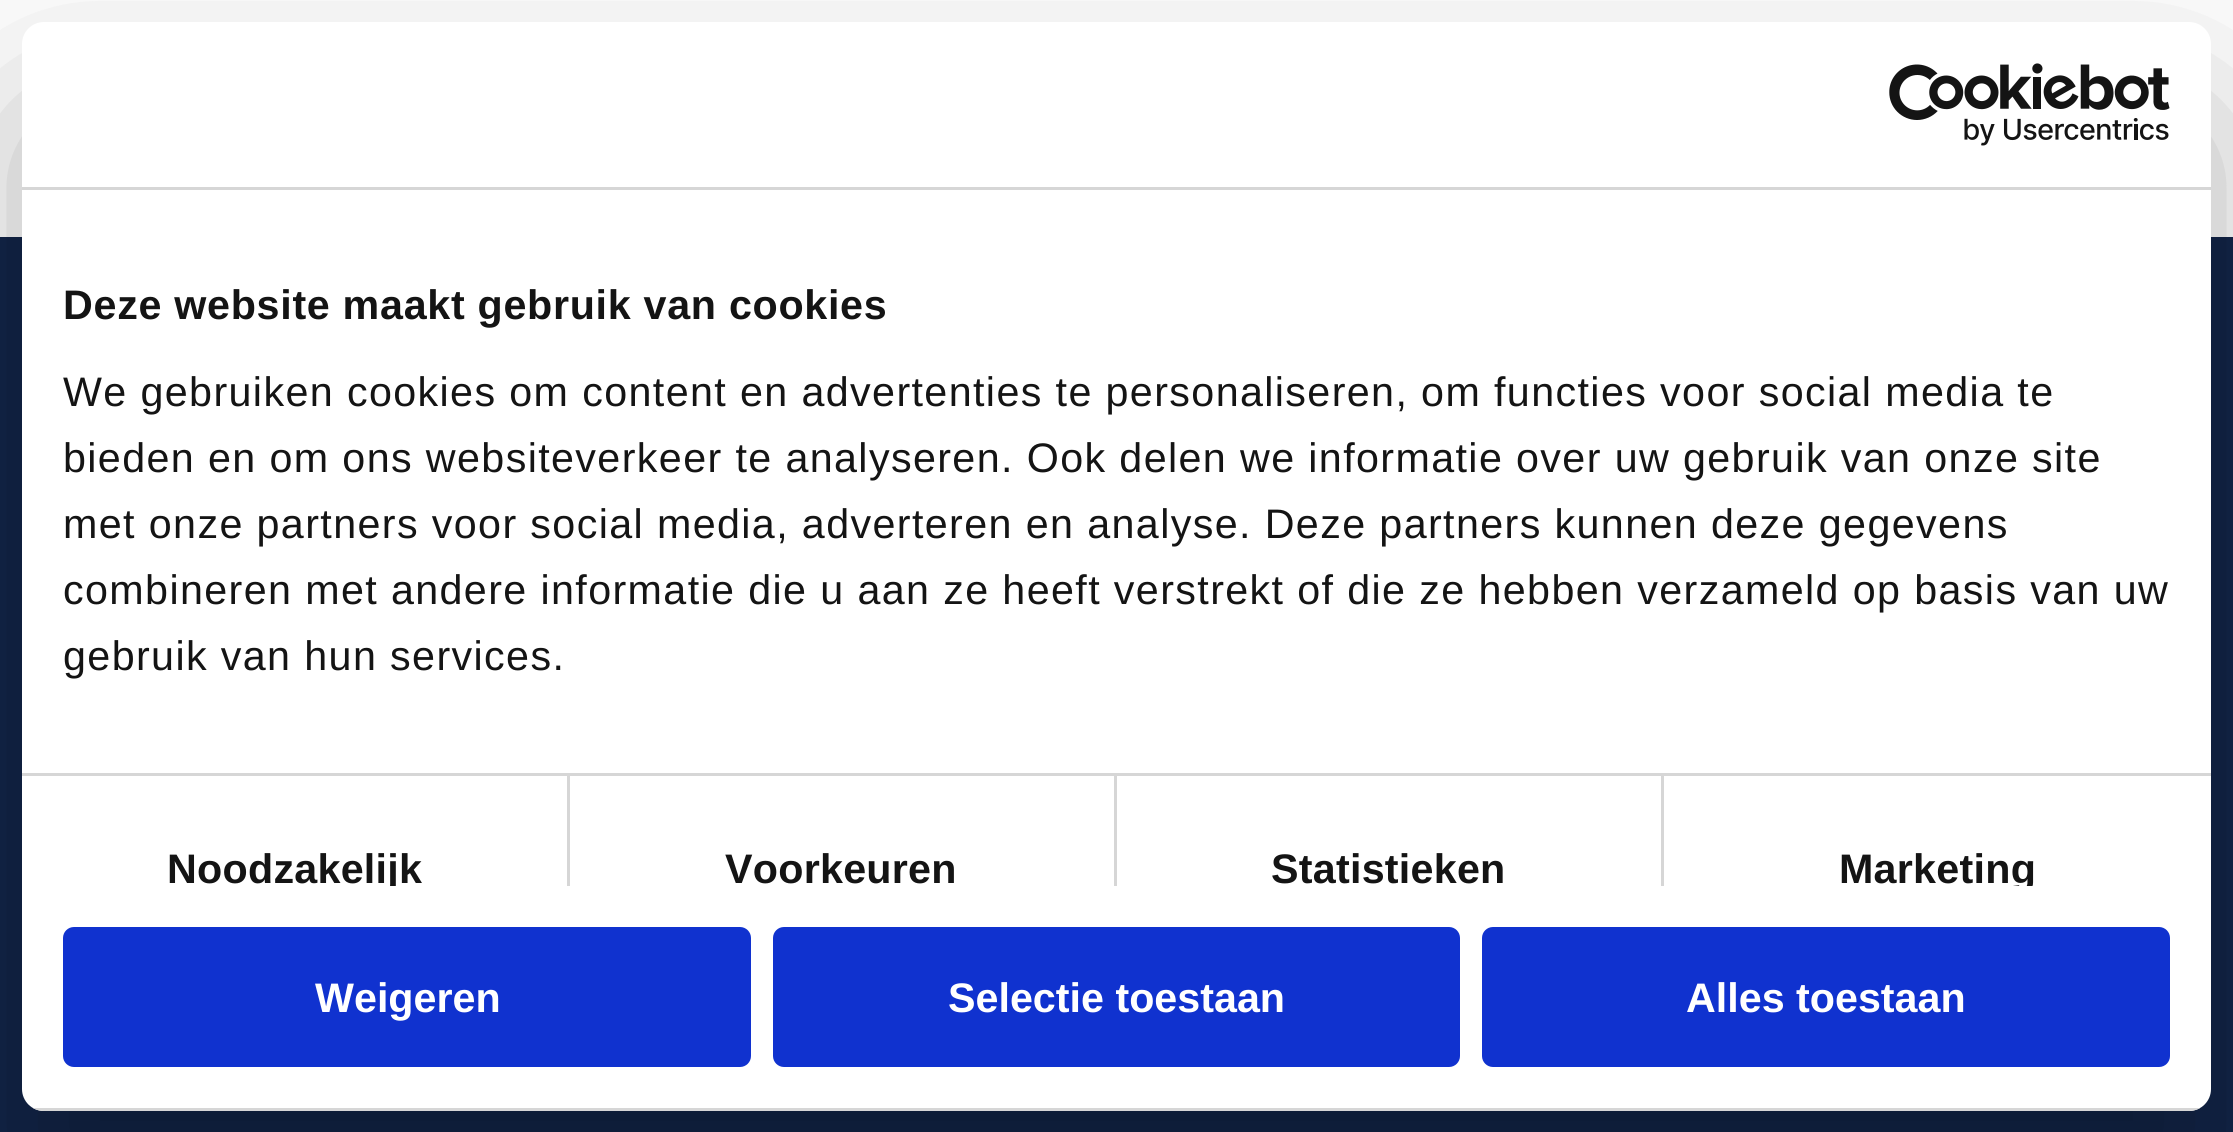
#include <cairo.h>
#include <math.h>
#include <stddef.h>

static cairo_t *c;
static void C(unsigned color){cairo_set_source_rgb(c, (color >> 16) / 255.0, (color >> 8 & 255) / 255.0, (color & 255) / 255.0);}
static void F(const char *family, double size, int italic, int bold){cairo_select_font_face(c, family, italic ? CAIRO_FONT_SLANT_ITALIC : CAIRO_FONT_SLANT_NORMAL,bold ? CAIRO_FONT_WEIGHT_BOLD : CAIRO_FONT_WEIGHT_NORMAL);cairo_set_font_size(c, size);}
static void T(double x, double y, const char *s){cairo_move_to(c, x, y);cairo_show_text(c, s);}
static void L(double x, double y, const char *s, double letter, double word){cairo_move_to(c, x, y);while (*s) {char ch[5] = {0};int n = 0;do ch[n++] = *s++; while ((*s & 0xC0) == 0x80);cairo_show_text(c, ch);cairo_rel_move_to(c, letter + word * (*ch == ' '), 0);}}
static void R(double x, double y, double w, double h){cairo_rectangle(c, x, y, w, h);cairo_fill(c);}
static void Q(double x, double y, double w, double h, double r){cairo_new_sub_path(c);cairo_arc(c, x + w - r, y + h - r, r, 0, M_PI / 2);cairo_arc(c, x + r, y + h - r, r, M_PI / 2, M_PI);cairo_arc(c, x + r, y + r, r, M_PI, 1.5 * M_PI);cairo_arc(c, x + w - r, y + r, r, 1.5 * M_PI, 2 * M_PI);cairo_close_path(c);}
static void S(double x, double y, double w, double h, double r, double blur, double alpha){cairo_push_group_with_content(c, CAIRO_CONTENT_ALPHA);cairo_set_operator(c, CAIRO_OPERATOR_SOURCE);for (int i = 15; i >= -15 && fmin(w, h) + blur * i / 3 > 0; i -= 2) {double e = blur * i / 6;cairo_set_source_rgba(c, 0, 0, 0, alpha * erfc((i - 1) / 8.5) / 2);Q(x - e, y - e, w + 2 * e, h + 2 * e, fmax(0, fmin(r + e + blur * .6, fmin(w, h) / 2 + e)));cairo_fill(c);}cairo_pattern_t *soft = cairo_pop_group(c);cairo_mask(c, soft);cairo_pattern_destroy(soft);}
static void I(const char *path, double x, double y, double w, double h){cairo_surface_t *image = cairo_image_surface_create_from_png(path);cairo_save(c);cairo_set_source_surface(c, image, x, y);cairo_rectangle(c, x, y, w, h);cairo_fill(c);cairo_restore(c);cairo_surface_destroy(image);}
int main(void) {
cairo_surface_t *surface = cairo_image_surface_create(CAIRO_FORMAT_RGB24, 2233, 1132);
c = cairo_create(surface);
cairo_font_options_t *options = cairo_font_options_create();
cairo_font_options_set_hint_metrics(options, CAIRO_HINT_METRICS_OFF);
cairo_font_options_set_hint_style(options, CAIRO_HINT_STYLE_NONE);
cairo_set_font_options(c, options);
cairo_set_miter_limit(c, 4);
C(0xffffff);
cairo_paint(c);
C(0x122549);
R(0,237,2233,895);
C(0x000000);
S(22,110,2189,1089,22,93.5,.3);
C(0xffffff);
Q(22,22,2189,1089,22);
cairo_fill(c);
C(0xd6d6d6);
R(22,187,2189,3);
I("1.png",1889,63,281,83);
R(22,773,2189,3);
F("Liberation Sans",41.25,0,1);
C(0x141414);
L(63,319,"Deze website maakt gebruik van cookies",.7,0);
F("Liberation Sans",41.25,0,0);
L(63,406,"We gebruiken cookies om content en advertenties te personaliseren, om functies voor social media te",1.38,0);
L(63,472,"bieden en om ons websiteverkeer te analyseren. Ook delen we informatie over uw gebruik van onze site",1.38,0);
L(63,538,"met onze partners voor social media, adverteren en analyse. Deze partners kunnen deze gegevens",1.38,0);
L(63,604,"combineren met andere informatie die u aan ze heeft verstrekt of die ze hebben verzameld op basis van uw",1.38,0);
L(63,670,"gebruik van hun services.",1.38,0);
C(0xd6d6d6);
R(567,776,3,110);
cairo_save(c);
cairo_rectangle(c,22,190,2189,696);
cairo_clip(c);
F("Liberation Sans",41.25,0,1);
C(0x141414);
L(167,883,"Noodzakelijk",.25,0);
cairo_restore(c);
R(1114,776,3,110);
F("Liberation Sans",41.25,0,1);
C(0x141414);
L(725,883,"Voorkeuren",.25,0);
C(0xd6d6d6);
R(1661,776,3,110);
C(0x141414);
L(1271,883,"Statistieken",.25,0);
cairo_save(c);
cairo_rectangle(c,22,190,2189,696);
cairo_clip(c);
L(1839,883,"Marketing",.25,0);
cairo_restore(c);
cairo_save(c);
Q(22,22,2189,1089,22);
cairo_clip(c);
C(0xd6d6d6);
R(33,1108,2167,3);
cairo_restore(c);
C(0x1032cf);
Q(66,930,682,134,8);
cairo_fill_preserve(c);
cairo_set_line_width(c,6);
cairo_stroke(c);
C(0xffffff);
T(315,1012,"Weigeren");
C(0x1032cf);
Q(776,930,681,134,8);
cairo_fill_preserve(c);
cairo_stroke(c);
C(0xffffff);
T(948,1012,"Selectie toestaan");
C(0x1032cf);
Q(1485,930,682,134,8);
cairo_fill_preserve(c);
cairo_stroke(c);
C(0xffffff);
T(1686,1012,"Alles toestaan");
cairo_surface_write_to_png(surface, "o.png");
cairo_font_options_destroy(options);
cairo_destroy(c);
cairo_surface_destroy(surface);
return 0;
}
